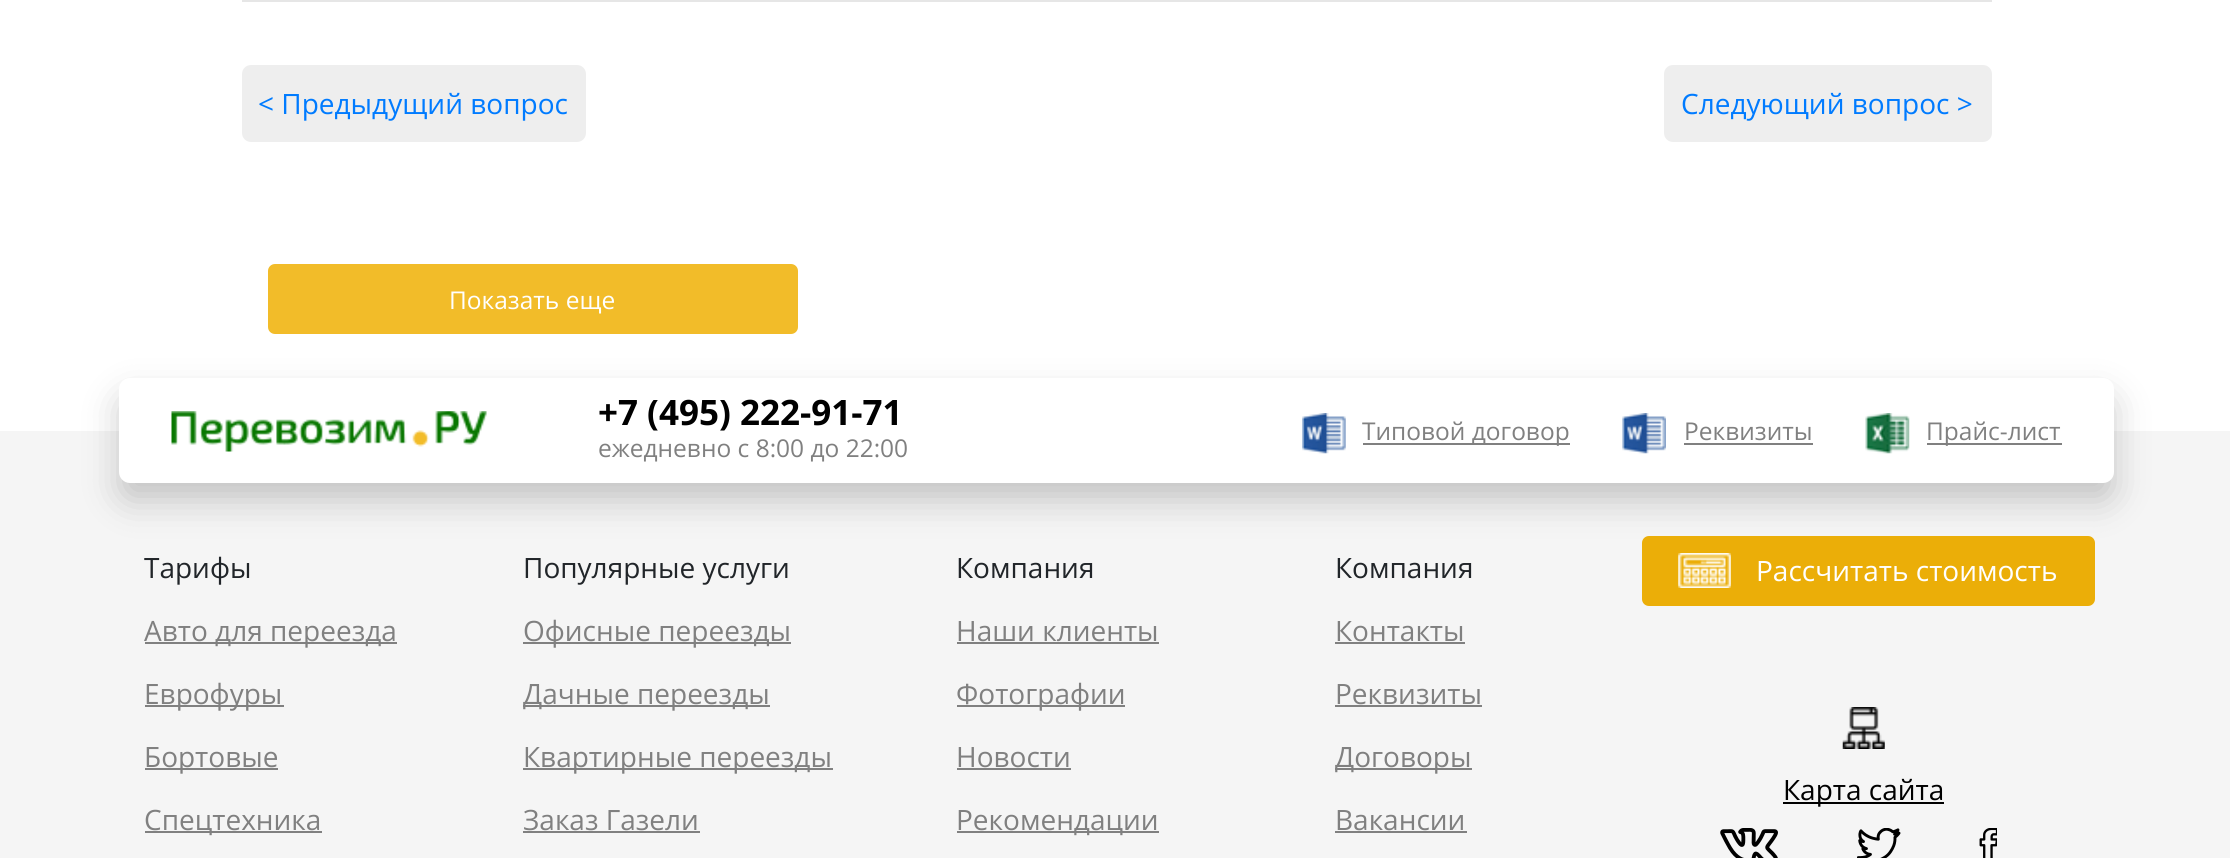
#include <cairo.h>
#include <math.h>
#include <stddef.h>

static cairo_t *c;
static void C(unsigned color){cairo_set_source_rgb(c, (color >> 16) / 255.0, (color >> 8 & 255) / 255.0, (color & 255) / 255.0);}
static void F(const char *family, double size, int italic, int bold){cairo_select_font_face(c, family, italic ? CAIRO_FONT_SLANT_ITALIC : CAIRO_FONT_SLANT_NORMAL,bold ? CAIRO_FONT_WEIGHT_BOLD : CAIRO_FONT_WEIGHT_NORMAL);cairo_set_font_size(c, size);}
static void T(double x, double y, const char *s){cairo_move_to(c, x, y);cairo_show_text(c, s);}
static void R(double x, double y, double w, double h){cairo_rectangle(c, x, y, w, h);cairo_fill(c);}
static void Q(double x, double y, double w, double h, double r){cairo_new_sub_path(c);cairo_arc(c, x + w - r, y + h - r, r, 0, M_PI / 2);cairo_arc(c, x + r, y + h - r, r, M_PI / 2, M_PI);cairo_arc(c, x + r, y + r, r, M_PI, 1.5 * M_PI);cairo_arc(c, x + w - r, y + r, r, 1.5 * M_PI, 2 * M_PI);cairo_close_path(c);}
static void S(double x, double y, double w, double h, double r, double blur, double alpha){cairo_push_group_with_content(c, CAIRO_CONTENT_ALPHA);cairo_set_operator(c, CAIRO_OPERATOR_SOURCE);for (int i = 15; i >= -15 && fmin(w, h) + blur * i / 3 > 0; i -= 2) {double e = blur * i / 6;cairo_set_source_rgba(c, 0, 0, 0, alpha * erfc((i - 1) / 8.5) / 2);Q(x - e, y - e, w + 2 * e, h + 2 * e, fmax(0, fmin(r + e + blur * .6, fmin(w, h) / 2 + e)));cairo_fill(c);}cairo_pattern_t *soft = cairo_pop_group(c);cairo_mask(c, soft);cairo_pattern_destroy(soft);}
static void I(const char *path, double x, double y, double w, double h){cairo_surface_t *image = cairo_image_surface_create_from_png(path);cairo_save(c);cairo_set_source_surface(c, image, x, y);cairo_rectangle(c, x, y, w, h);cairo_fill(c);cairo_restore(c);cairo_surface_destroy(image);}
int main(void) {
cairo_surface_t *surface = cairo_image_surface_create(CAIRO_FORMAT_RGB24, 2230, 858);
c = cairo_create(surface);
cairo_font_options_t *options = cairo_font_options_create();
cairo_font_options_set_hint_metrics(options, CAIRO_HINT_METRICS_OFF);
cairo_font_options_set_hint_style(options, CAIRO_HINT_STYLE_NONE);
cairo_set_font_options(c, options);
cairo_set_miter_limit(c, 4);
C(0xffffff);
cairo_paint(c);
C(0xe6e6e6);
R(242,0,1750,2);
C(0xeeeeee);
Q(242,65,344,77,9);
cairo_fill(c);
F("Open Sans",28,0,0);
C(0x007bff);
T(258,114,"< Предыдущий вопрос");
C(0xeeeeee);
Q(1664,65,328,77,9);
cairo_fill(c);
C(0x007bff);
T(1681,114,"Следующий вопрос >");
C(0xf2bc29);
Q(268,264,530,70,7);
cairo_fill(c);
F("Open Sans",24.5,0,0);
C(0xffffff);
T(449,309,"Показать еще");
C(0xf5f5f5);
R(0,431,2230,427);
C(0x000000);
S(119,396,1995,105,11,17.5,.2);
C(0xffffff);
Q(119,378,1995,105,11);
cairo_fill(c);
I("1.png",171,411,316,41);
F("Open Sans",35,0,1);
C(0x000000);
T(598,425,"+7 (495) 222-91-71");
F("Open Sans",24.5,0,0);
C(0x808080);
T(598,457,"ежедневно с 8:00 до 22:00");
I("2.png",1302,413,44,41);
R(1363,443,207,2);
T(1362,440,"Типовой договор");
I("3.png",1622,413,44,41);
T(1684,440,"Реквизиты");
R(1684,443,129,2);
I("4.png",1865,413,45,41);
R(1927,443,135,2);
T(1926,440,"Прайс-лист");
F("Open Sans",28,0,0);
C(0x212529);
T(144,578,"Тарифы");
C(0x808080);
R(145,642,252,2);
T(144,641,"Авто для переезда");
R(145,705,139,2);
T(144,704,"Еврофуры");
R(145,768,133,2);
T(144,767,"Бортовые");
R(145,831,177,2);
T(144,830,"Спецтехника");
C(0x212529);
T(523,578,"Популярные услуги");
C(0x808080);
R(523,642,268,2);
T(523,641,"Офисные переезды");
R(523,705,247,2);
T(523,704,"Дачные переезды");
R(523,768,310,2);
T(523,767,"Квартирные переезды");
T(523,830,"Заказ Газели");
R(523,831,177,2);
C(0x212529);
T(956,578,"Компания");
C(0x808080);
T(956,641,"Наши клиенты");
R(957,642,202,2);
R(957,705,168,2);
T(956,704,"Фотографии");
T(956,767,"Новости");
R(957,768,114,2);
R(957,831,202,2);
T(956,830,"Рекомендации");
C(0x212529);
T(1335,578,"Компания");
C(0x808080);
T(1335,641,"Контакты");
R(1335,642,130,2);
T(1335,704,"Реквизиты");
R(1335,705,147,2);
R(1335,768,137,2);
T(1335,767,"Договоры");
T(1335,830,"Вакансии");
R(1335,831,132,2);
C(0xebae08);
Q(1642,536,453,70,7);
cairo_fill(c);
I("5.png",1678,553,53,35);
C(0xffffff);
T(1756,581,"Рассчитать стоимость");
I("6.png",1842,707,43,42);
C(0x000000);
R(1783,802,161,2);
T(1783,800,"Карта сайта");
I("7.png",1720,828,58,30);
I("8.png",1857,828,44,30);
I("9.png",1979,828,18,30);
cairo_surface_write_to_png(surface, "o.png");
cairo_font_options_destroy(options);
cairo_destroy(c);
cairo_surface_destroy(surface);
return 0;
}
